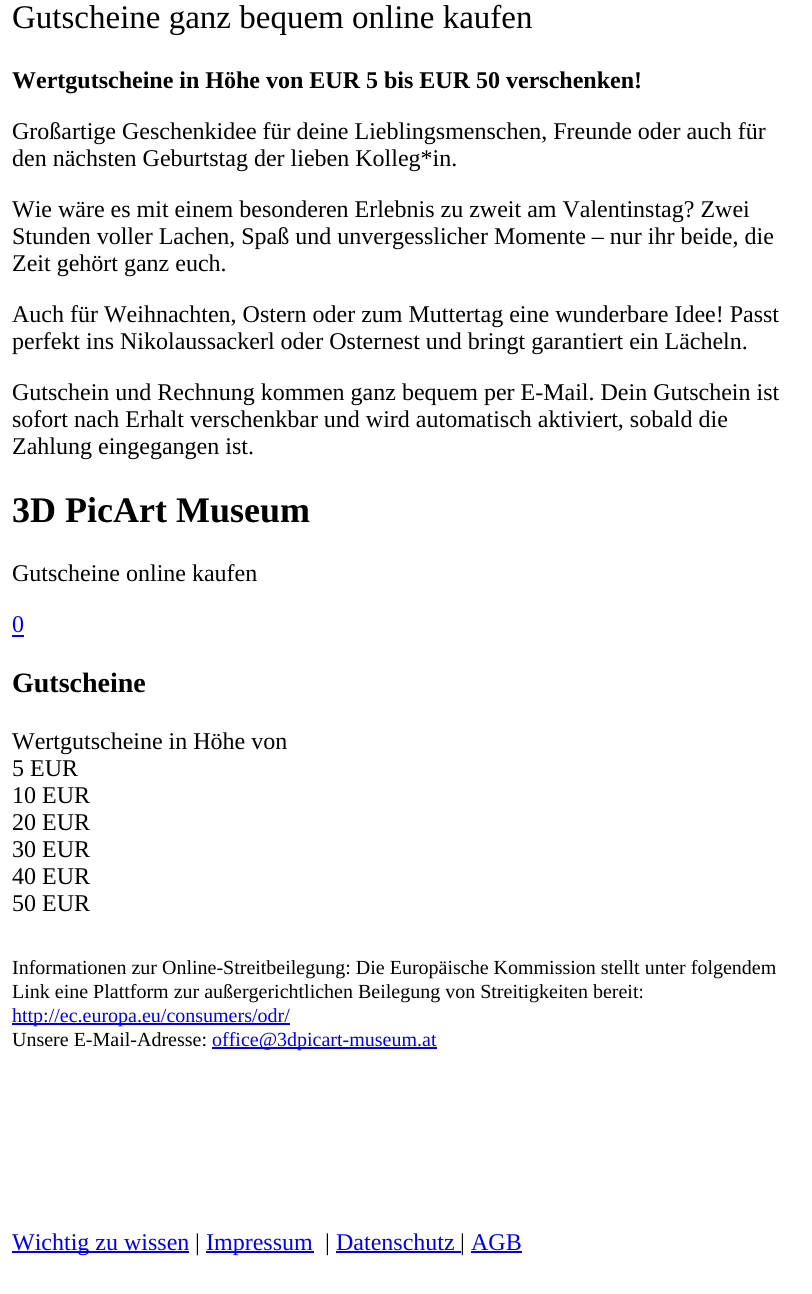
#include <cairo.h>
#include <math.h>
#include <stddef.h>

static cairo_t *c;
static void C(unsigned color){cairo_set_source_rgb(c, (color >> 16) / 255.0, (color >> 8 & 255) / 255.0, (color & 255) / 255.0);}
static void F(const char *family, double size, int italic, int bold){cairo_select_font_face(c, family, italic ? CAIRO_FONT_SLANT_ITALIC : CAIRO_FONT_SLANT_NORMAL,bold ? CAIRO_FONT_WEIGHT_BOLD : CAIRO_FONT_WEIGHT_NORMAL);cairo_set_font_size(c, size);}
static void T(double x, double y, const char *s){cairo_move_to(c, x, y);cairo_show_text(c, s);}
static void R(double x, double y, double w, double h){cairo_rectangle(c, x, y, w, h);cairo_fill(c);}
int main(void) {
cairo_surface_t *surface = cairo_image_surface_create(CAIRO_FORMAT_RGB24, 812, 1294);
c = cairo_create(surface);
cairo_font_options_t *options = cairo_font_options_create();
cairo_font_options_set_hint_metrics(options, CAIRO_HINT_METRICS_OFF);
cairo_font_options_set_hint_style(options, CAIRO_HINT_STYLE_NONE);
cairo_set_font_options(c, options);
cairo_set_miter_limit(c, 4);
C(0xffffff);
cairo_paint(c);
F("Liberation Serif",33,0,0);
C(0x000000);
T(12,28,"Gutscheine ganz bequem online kaufen");
F("Liberation Serif",24,0,1);
T(12,88,"Wertgutscheine in Höhe von EUR 5 bis EUR 50 verschenken!");
F("Liberation Serif",24,0,0);
T(12,139,"Großartige Geschenkidee für deine Lieblingsmenschen, Freunde oder auch für");
T(12,166,"den nächsten Geburtstag der lieben Kolleg*in.");
T(12,217,"Wie wäre es mit einem besonderen Erlebnis zu zweit am Valentinstag? Zwei");
T(12,244,"Stunden voller Lachen, Spaß und unvergesslicher Momente – nur ihr beide, die");
T(12,271,"Zeit gehört ganz euch.");
T(12,322,"Auch für Weihnachten, Ostern oder zum Muttertag eine wunderbare Idee! Passt");
T(12,349,"perfekt ins Nikolaussackerl oder Osternest und bringt garantiert ein Lächeln.");
T(12,400,"Gutschein und Rechnung kommen ganz bequem per E-Mail. Dein Gutschein ist");
T(12,427,"sofort nach Erhalt verschenkbar und wird automatisch aktiviert, sobald die");
T(12,454,"Zahlung eingegangen ist.");
F("Liberation Serif",36,0,1);
T(12,522,"3D PicArt Museum");
F("Liberation Serif",24,0,0);
T(12,581,"Gutscheine online kaufen");
C(0x0000ee);
T(12,632,"0");
R(12,635,12,2);
F("Liberation Serif",28,0,1);
C(0x000000);
T(12,692,"Gutscheine");
F("Liberation Serif",24,0,0);
T(12,749,"Wertgutscheine in Höhe von");
T(12,776,"5 EUR");
T(12,803,"10 EUR");
T(12,830,"20 EUR");
T(12,857,"30 EUR");
T(12,884,"40 EUR");
T(12,911,"50 EUR");
F("Liberation Serif",20,0,0);
T(12,974,"Informationen zur Online-Streitbeilegung: Die Europäische Kommission stellt unter folgendem");
T(12,998,"Link eine Plattform zur außergerichtlichen Beilegung von Streitigkeiten bereit:");
C(0x0000ee);
R(12,1023,278,2);
T(12,1022,"http://ec.europa.eu/consumers/odr/");
C(0x000000);
T(12,1046,"Unsere E-Mail-Adresse:");
C(0x0000ee);
R(212,1047,225,2);
T(212,1046,"office@3dpicart-museum.at");
R(12,1251,177,2);
F("Liberation Serif",24,0,0);
T(12,1250,"Wichtig zu wissen");
C(0x000000);
T(195,1250,"|");
C(0x0000ee);
R(206,1251,108,2);
T(206,1250,"Impressum");
C(0x000000);
T(325,1250,"|");
C(0x0000ee);
T(336,1250,"Datenschutz");
R(336,1251,125,2);
C(0x000000);
T(460,1250,"|");
C(0x0000ee);
T(471,1250,"AGB");
R(471,1251,51,2);
cairo_surface_write_to_png(surface, "o.png");
cairo_font_options_destroy(options);
cairo_destroy(c);
cairo_surface_destroy(surface);
return 0;
}
